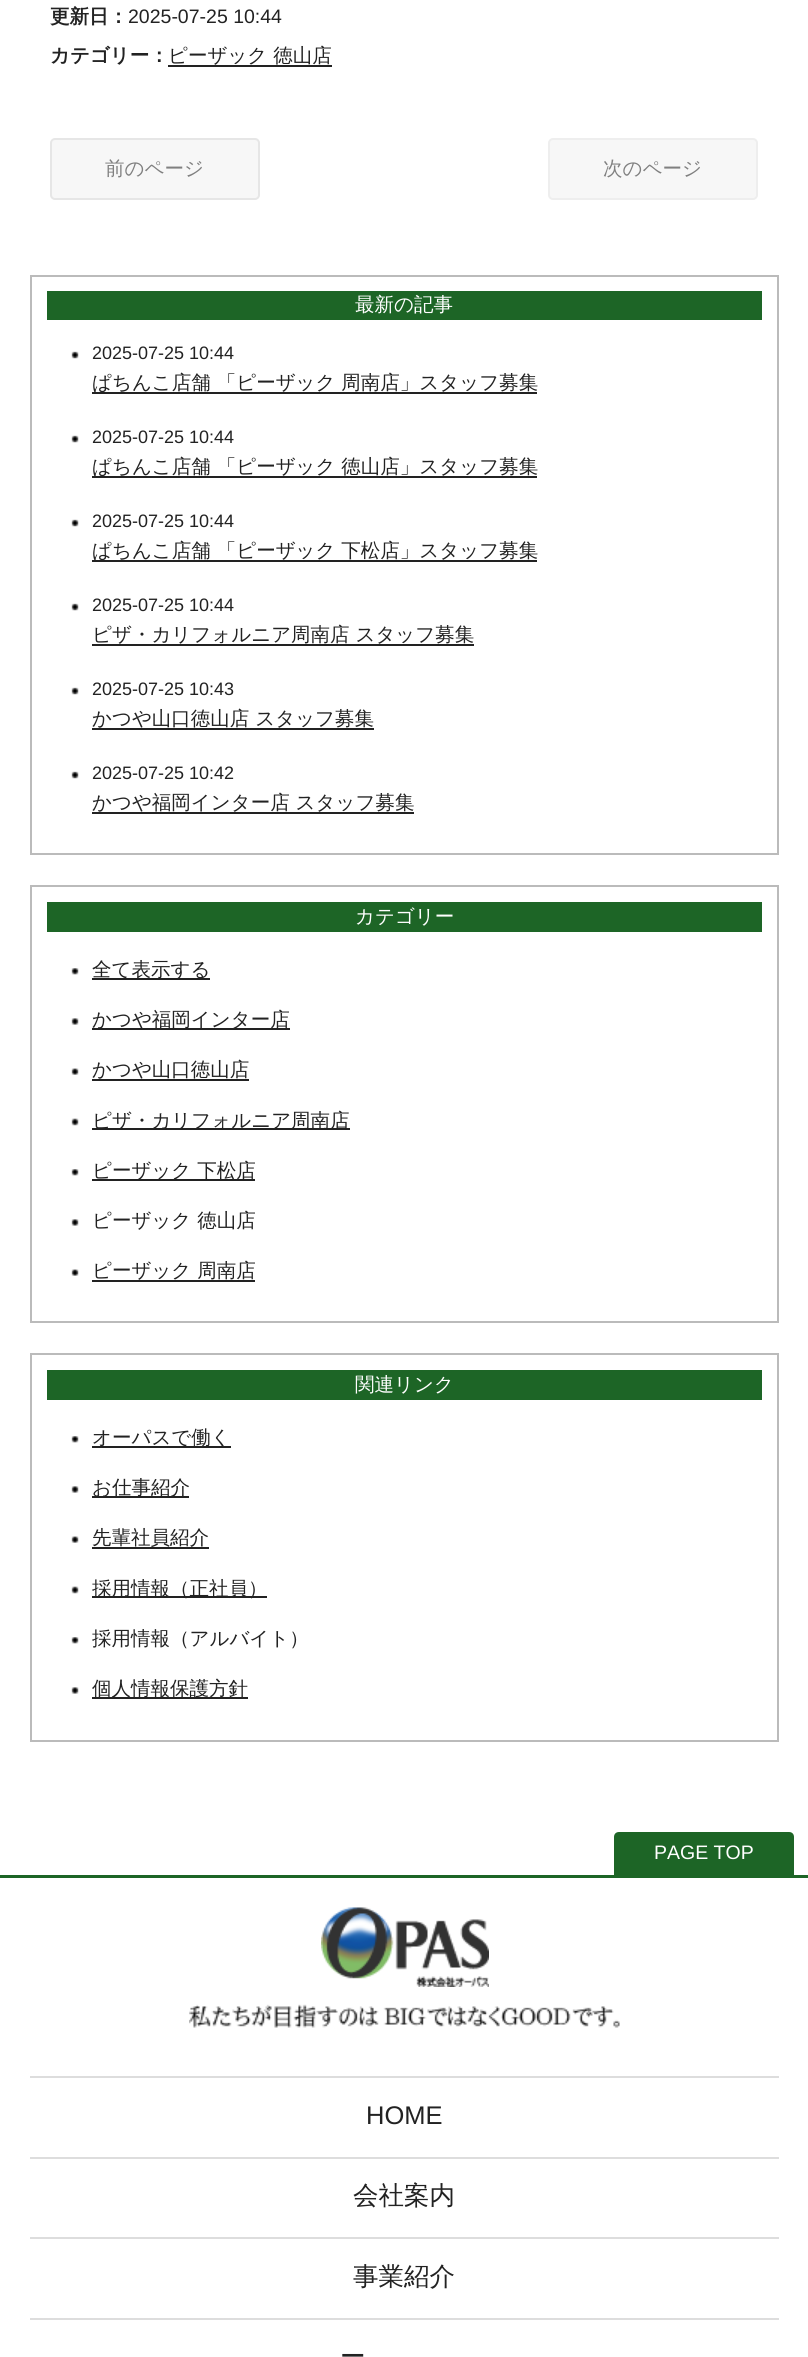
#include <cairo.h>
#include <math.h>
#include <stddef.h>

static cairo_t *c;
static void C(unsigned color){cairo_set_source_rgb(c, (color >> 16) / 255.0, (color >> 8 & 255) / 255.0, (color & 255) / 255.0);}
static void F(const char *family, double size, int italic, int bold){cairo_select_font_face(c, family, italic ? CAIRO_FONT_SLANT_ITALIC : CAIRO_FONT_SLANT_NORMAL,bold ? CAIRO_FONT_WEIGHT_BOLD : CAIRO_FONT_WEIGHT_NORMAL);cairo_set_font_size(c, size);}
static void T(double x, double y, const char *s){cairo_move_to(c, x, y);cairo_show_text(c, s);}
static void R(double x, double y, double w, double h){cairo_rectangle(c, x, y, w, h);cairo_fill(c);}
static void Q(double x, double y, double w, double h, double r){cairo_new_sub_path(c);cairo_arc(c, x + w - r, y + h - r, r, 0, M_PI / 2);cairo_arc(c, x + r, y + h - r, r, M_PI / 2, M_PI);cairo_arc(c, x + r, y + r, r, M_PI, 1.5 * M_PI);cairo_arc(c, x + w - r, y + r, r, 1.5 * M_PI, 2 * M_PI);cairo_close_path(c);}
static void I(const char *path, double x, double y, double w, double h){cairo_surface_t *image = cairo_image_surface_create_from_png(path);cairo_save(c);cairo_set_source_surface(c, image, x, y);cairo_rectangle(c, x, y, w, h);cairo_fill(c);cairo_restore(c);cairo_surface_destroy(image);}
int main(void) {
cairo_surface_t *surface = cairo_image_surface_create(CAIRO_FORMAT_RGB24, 808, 2357);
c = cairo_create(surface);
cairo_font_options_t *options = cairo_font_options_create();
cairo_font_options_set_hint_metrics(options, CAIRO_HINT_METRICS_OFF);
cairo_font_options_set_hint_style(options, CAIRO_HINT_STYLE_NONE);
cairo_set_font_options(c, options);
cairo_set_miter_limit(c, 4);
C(0xffffff);
cairo_paint(c);
F("WenQuanYi Zen Hei",19.5,0,1);
C(0x222222);
T(50,23,"更新日：");
F("Liberation Sans",19.5,0,0);
T(128,23,"2025-07-25 10:44");
F("WenQuanYi Zen Hei",19.5,0,1);
T(50,62,"カテゴリー：");
F("WenQuanYi Zen Hei Medium",19.5,0,0);
T(168,62,"ピーザック 徳山店");
R(168,65,164,2);
C(0xf7f7f7);
Q(51,139,208,60,4);
cairo_fill_preserve(c);
C(0xe6e6e6);
cairo_stroke(c);
C(0x808080);
T(105,175,"前のページ");
C(0xf7f7f7);
Q(549,139,208,60,4);
cairo_fill_preserve(c);
C(0xeeeeee);
cairo_stroke(c);
C(0x808080);
T(603,175,"次のページ");
cairo_rectangle(c,31,276,747,578);
C(0xbbbbbb);
cairo_stroke(c);
C(0x1d6526);
R(47,291,715,29);
C(0xffffff);
T(355,311,"最新の記事");
I("1.png",71,351,8,8);
F("Liberation Sans",18,0,0);
C(0x222222);
T(92,359,"2025-07-25 10:44");
R(92,392,445,2);
F("WenQuanYi Zen Hei Medium",19.5,0,0);
T(92,389,"ぱちんこ店舗 「ピーザック 周南店」スタッフ募集");
I("1.png",71,435,8,8);
F("Liberation Sans",18,0,0);
T(92,443,"2025-07-25 10:44");
R(92,476,445,2);
F("WenQuanYi Zen Hei Medium",19.5,0,0);
T(92,473,"ぱちんこ店舗 「ピーザック 徳山店」スタッフ募集");
I("1.png",71,519,8,8);
F("Liberation Sans",18,0,0);
T(92,527,"2025-07-25 10:44");
R(92,560,445,2);
F("WenQuanYi Zen Hei Medium",19.5,0,0);
T(92,557,"ぱちんこ店舗 「ピーザック 下松店」スタッフ募集");
I("1.png",71,603,8,8);
F("Liberation Sans",18,0,0);
T(92,611,"2025-07-25 10:44");
F("WenQuanYi Zen Hei Medium",19.5,0,0);
T(92,641,"ピザ・カリフォルニア周南店 スタッフ募集");
R(92,644,382,2);
I("1.png",71,687,8,8);
F("Liberation Sans",18,0,0);
T(92,695,"2025-07-25 10:43");
F("WenQuanYi Zen Hei Medium",19.5,0,0);
T(92,725,"かつや山口徳山店 スタッフ募集");
R(92,728,282,2);
I("1.png",71,771,8,8);
F("Liberation Sans",18,0,0);
T(92,779,"2025-07-25 10:42");
F("WenQuanYi Zen Hei Medium",19.5,0,0);
T(92,809,"かつや福岡インター店 スタッフ募集");
R(92,812,322,2);
cairo_rectangle(c,31,886,747,436);
C(0xbbbbbb);
cairo_stroke(c);
C(0x1d6526);
R(47,902,715,30);
C(0xffffff);
T(355,923,"カテゴリー");
I("2.png",71,968,8,7);
C(0x222222);
R(92,978,118,2);
T(92,976,"全て表示する");
I("3.png",71,1018,8,7);
R(92,1028,198,2);
T(92,1026,"かつや福岡インター店");
I("4.png",71,1068,8,7);
T(92,1076,"かつや山口徳山店");
R(92,1079,157,2);
I("5.png",71,1118,8,8);
R(92,1128,258,2);
T(92,1127,"ピザ・カリフォルニア周南店");
I("2.png",71,1169,8,7);
R(92,1179,163,2);
T(92,1177,"ピーザック 下松店");
I("3.png",71,1219,8,7);
T(92,1227,"ピーザック 徳山店");
I("4.png",71,1269,8,7);
T(92,1277,"ピーザック 周南店");
R(92,1280,163,2);
cairo_rectangle(c,31,1354,747,387);
C(0xbbbbbb);
cairo_stroke(c);
C(0x1d6526);
R(47,1370,715,30);
C(0xffffff);
T(355,1391,"関連リンク");
I("2.png",71,1436,8,7);
C(0x222222);
R(92,1446,139,2);
T(92,1444,"オーパスで働く");
I("3.png",71,1486,8,7);
R(92,1496,97,2);
T(92,1494,"お仕事紹介");
I("4.png",71,1536,8,7);
R(92,1547,117,2);
T(92,1544,"先輩社員紹介");
I("5.png",71,1586,8,8);
R(92,1596,175,2);
T(92,1595,"採用情報（正社員）");
I("2.png",71,1637,8,7);
T(92,1645,"採用情報（アルバイト）");
I("3.png",71,1687,8,7);
R(92,1697,156,2);
T(92,1695,"個人情報保護方針");
C(0x1d6526);
cairo_new_path(c);
cairo_move_to(c,619,1832);
cairo_line_to(c,789,1832);
cairo_curve_to(c,792,1832,794,1834,794,1837);
cairo_line_to(c,794,1875);
cairo_line_to(c,614,1875);
cairo_line_to(c,614,1837);
cairo_curve_to(c,614,1834,616,1832,619,1832);
cairo_close_path(c);
cairo_fill(c);
F("Liberation Sans",19.5,0,0);
C(0xffffff);
T(654,1859,"PAGE TOP");
C(0x1d6526);
R(0,1875,808,3);
I("6.png",321,1907,168,80);
I("7.png",189,2004,431,24);
C(0xdddddd);
R(30,2076,749,2);
R(30,2157,749,2);
F("Liberation Sans",25.5,0,0);
C(0x222222);
T(366,2124,"HOME");
C(0xdddddd);
R(30,2237,749,2);
F("WenQuanYi Zen Hei Medium",25.5,0,0);
C(0x222222);
T(353,2204,"会社案内");
C(0xdddddd);
R(30,2318,749,2);
C(0x222222);
T(353,2285,"事業紹介");
T(340,2365,"ー");
cairo_surface_write_to_png(surface, "o.png");
cairo_font_options_destroy(options);
cairo_destroy(c);
cairo_surface_destroy(surface);
return 0;
}
